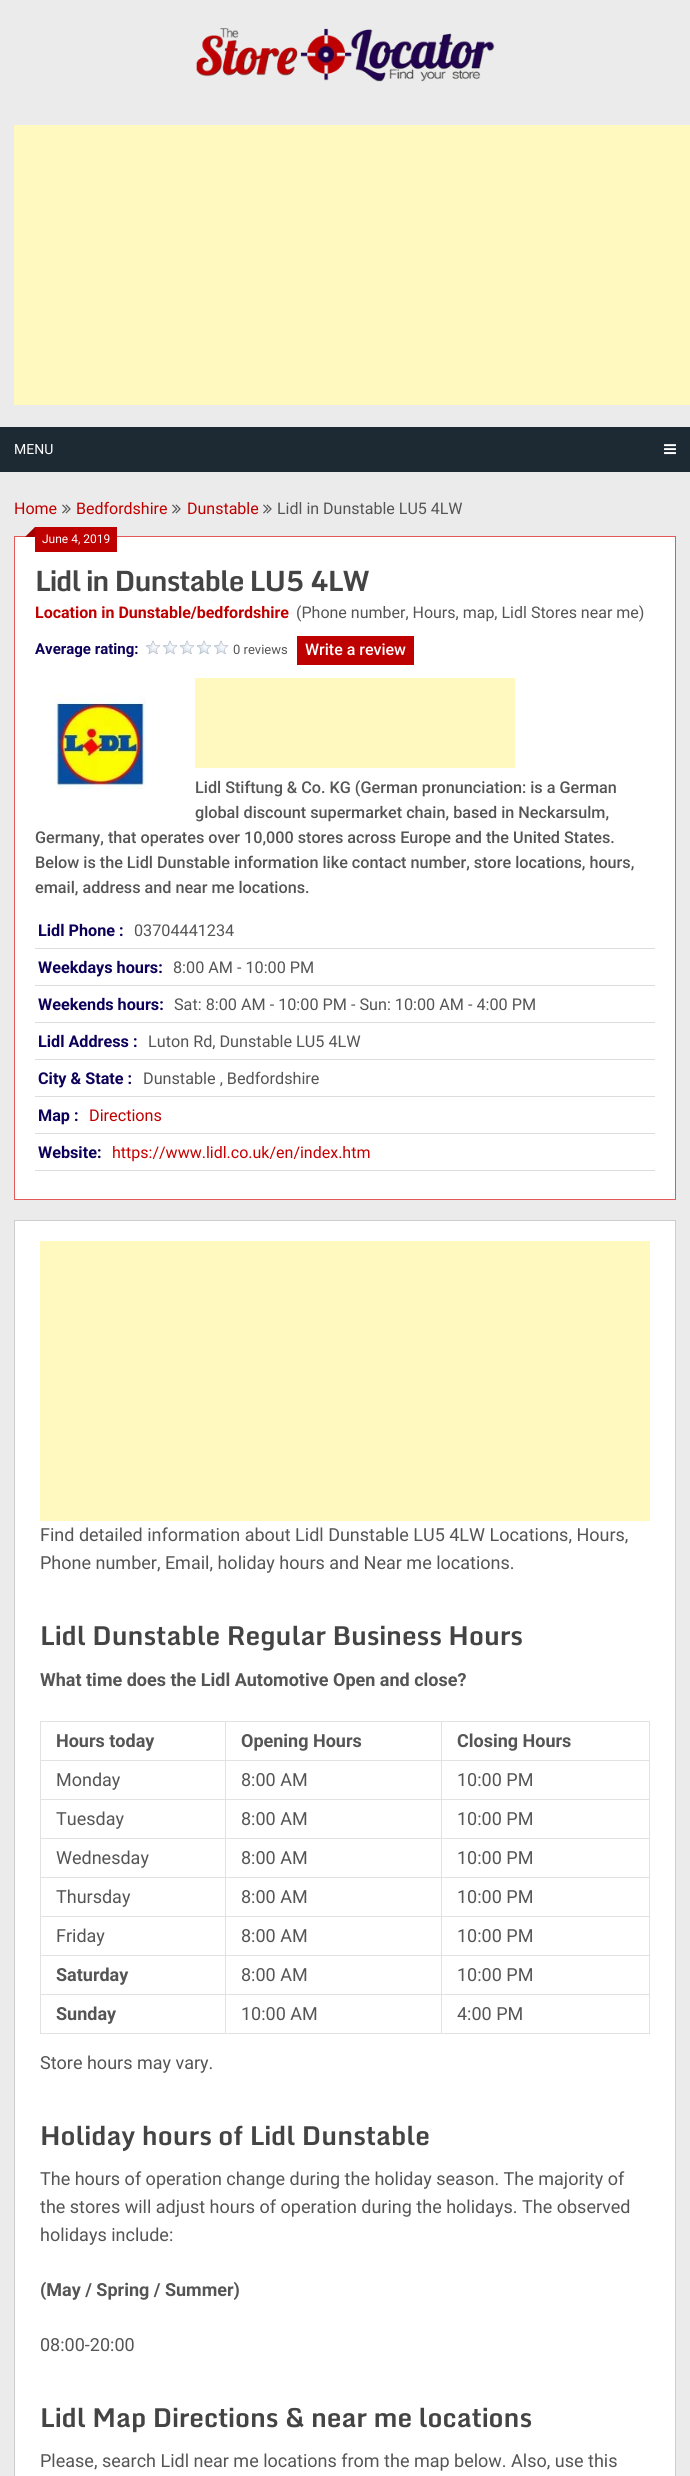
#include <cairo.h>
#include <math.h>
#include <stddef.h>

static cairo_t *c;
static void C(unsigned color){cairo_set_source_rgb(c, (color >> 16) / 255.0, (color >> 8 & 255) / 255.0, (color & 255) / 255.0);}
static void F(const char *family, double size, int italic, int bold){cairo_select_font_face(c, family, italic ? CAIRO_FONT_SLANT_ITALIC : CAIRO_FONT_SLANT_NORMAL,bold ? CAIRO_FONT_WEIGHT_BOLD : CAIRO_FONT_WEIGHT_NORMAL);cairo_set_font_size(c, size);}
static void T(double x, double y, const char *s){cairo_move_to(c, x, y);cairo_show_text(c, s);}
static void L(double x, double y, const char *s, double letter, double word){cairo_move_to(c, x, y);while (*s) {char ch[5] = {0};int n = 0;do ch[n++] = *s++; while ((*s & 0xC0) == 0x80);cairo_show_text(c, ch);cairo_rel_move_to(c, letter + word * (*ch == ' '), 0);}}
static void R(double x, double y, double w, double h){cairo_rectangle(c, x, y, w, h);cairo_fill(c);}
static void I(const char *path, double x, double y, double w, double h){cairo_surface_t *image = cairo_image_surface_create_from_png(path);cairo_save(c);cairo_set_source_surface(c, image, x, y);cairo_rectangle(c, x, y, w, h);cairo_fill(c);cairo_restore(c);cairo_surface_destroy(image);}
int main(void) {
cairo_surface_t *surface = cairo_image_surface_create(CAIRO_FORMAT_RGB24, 690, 2476);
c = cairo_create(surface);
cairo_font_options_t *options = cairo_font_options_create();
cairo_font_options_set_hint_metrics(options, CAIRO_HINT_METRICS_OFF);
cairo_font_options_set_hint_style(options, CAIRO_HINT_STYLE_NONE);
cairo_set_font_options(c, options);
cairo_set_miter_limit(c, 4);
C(0xebebeb);
cairo_paint(c);
I("1.png",196,28,299,54);
C(0xfff9c0);
R(14,125,676,280);
C(0x1d2933);
R(0,427,690,45);
F("Roboto",14,0,0);
C(0xffffff);
T(14,454,"MENU");
I("2.png",664,444,12,11);
F("Roboto",16,0,0);
C(0xbf0000);
T(14,514,"Home");
I("3.png",62,504,9,10);
T(76,514,"Bedfordshire");
I("3.png",172,504,9,10);
T(187,514,"Dunstable");
I("3.png",263,504,9,10);
C(0x555555);
T(277,514,"Lidl in Dunstable LU5 4LW");
C(0xffffff);
cairo_rectangle(c,14.5,536.5,661,663);
cairo_fill_preserve(c);
C(0xe25959);
cairo_set_line_width(c,1);
cairo_stroke(c);
C(0xbf0000);
R(35,527,82,25);
cairo_new_path(c);
cairo_move_to(c,35,537);
cairo_line_to(c,25,537);
cairo_line_to(c,35,527);
cairo_close_path(c);
cairo_fill(c);
cairo_set_source_rgba(c,0,0,0,0.15);
cairo_new_path(c);
cairo_move_to(c,35,537);
cairo_line_to(c,25,537);
cairo_line_to(c,35,527);
cairo_close_path(c);
cairo_fill(c);
F("Roboto",12,0,0);
C(0xffffff);
T(42,543,"June 4, 2019");
F("Monda",28,0,1);
C(0x444444);
L(35,591,"Lidl in Dunstable LU5 4LW",-1,0);
F("Roboto",16,0,1);
C(0xbf0000);
T(35,618,"Location in Dunstable/bedfordshire");
F("Roboto",16,0,0);
C(0x555555);
T(296,618,"(Phone number, Hours, map, Lidl Stores near me)");
F("Roboto",15,0,1);
C(0x0c0058);
T(35,654,"Average rating:");
I("4.png",146,640,83,15);
F("Roboto",13,0,0);
C(0x555555);
T(233,654,"0 reviews");
C(0xbf0000);
R(297,636,117,29);
F("Roboto Medium",16,0,0);
C(0xffffff);
T(305,655,"Write a review");
I("5.png",52,694,94,95);
C(0xfff9c0);
R(195,678,320,90);
F("Roboto Medium",16.2,0,0);
C(0x555555);
T(195,793,"Lidl Stiftung & Co. KG (German pronunciation: is a German");
T(195,818,"global discount supermarket chain, based in Neckarsulm,");
T(35,843,"Germany, that operates over 10,000 stores across Europe and the United States.");
T(35,868,"Below is the Lidl Dunstable information like contact number, store locations, hours,");
T(35,893,"email, address and near me locations.");
C(0xdddddd);
R(35,948,620,1);
F("Roboto",16.2,0,1);
C(0x0c0058);
T(38,936,"Lidl Phone :");
F("Roboto",16.2,0,0);
C(0x555555);
T(134,936,"03704441234");
C(0xdddddd);
R(35,985,620,1);
F("Roboto",16.2,0,1);
C(0x0c0058);
T(38,973,"Weekdays hours:");
F("Roboto",16.2,0,0);
C(0x555555);
T(173,973,"8:00 AM - 10:00 PM");
C(0xdddddd);
R(35,1022,620,1);
F("Roboto",16.2,0,1);
C(0x0c0058);
T(38,1010,"Weekends hours:");
F("Roboto",16.2,0,0);
C(0x555555);
T(174,1010,"Sat: 8:00 AM - 10:00 PM - Sun: 10:00 AM - 4:00 PM");
C(0xdddddd);
R(35,1059,620,1);
F("Roboto",16.2,0,1);
C(0x0c0058);
T(38,1047,"Lidl Address :");
F("Roboto",16.2,0,0);
C(0x555555);
T(148,1047,"Luton Rd, Dunstable LU5 4LW");
C(0xdddddd);
R(35,1096,620,1);
F("Roboto",16.2,0,1);
C(0x0c0058);
T(38,1084,"City & State :");
F("Roboto",16.2,0,0);
C(0x555555);
T(143,1084,"Dunstable , Bedfordshire");
C(0xdddddd);
R(35,1133,620,1);
F("Roboto",16.2,0,1);
C(0x0c0058);
T(38,1121,"Map :");
F("Roboto",16.2,0,0);
C(0xbf0000);
T(89,1121,"Directions");
C(0xdddddd);
R(35,1170,620,1);
F("Roboto",16.2,0,1);
C(0x0c0058);
T(38,1158,"Website:");
F("Roboto",16,0,0);
C(0xc60000);
T(112,1158,"https://www.lidl.co.uk/en/index.htm");
C(0xffffff);
cairo_rectangle(c,14.5,1220.5,661,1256);
cairo_fill_preserve(c);
C(0xcdcdcd);
cairo_stroke(c);
C(0xfff9c0);
R(40,1241,610,280);
F("Roboto",18,0,0);
C(0x555555);
T(40,1541,"Find detailed information about Lidl Dunstable LU5 4LW Locations, Hours,");
T(40,1569,"Phone number, Email, holiday hours and Near me locations.");
F("Monda",26,0,1);
C(0x444444);
T(40,1645,"Lidl Dunstable Regular Business Hours");
F("Roboto",18,0,1);
C(0x555555);
T(40,1686,"What time does the Lidl Automotive Open and close?");
C(0xe2e2e2);
R(441,1721,209,1);
R(441,1760,209,1);
R(441,1799,209,1);
R(441,1838,209,1);
R(441,1877,209,1);
R(441,1916,209,1);
R(441,1955,209,1);
R(441,1994,209,1);
R(649,1994,1,40);
R(441,2033,209,1);
R(441,1994,1,40);
R(225,1994,217,1);
R(441,1955,1,40);
R(225,1955,217,1);
R(441,1916,1,40);
R(225,1916,217,1);
R(441,1877,1,40);
R(225,1877,217,1);
R(441,1838,1,40);
R(225,1838,217,1);
R(441,1799,1,40);
R(225,1799,217,1);
R(441,1760,1,40);
R(225,1760,217,1);
R(441,1721,1,40);
R(225,1721,217,1);
R(225,2033,217,1);
R(225,1994,1,40);
R(40,1994,186,1);
R(225,1955,1,40);
R(40,1955,186,1);
R(225,1916,1,40);
R(40,1916,186,1);
R(225,1877,1,40);
R(40,1877,186,1);
R(225,1838,1,40);
R(40,1838,186,1);
R(225,1799,1,40);
R(40,1799,186,1);
R(225,1760,1,40);
R(40,1760,186,1);
R(225,1721,1,40);
R(40,1721,186,1);
R(40,2033,186,1);
R(40,1994,1,40);
R(40,1955,1,40);
R(40,1916,1,40);
R(40,1877,1,40);
R(40,1838,1,40);
R(40,1799,1,40);
R(40,1760,1,40);
R(40,1721,1,40);
C(0x555555);
T(56,1747,"Hours today");
T(241,1747,"Opening Hours");
C(0xe2e2e2);
R(649,1955,1,40);
R(649,1916,1,40);
R(649,1877,1,40);
R(649,1838,1,40);
R(649,1799,1,40);
R(649,1760,1,40);
R(649,1721,1,40);
C(0x555555);
T(457,1747,"Closing Hours");
F("Roboto",18,0,0);
T(56,1786,"Monday");
T(241,1786,"8:00 AM");
T(457,1786,"10:00 PM");
T(56,1825,"Tuesday");
T(241,1825,"8:00 AM");
T(457,1825,"10:00 PM");
T(56,1864,"Wednesday");
T(241,1864,"8:00 AM");
T(457,1864,"10:00 PM");
T(56,1903,"Thursday");
T(241,1903,"8:00 AM");
T(457,1903,"10:00 PM");
T(56,1942,"Friday");
T(241,1942,"8:00 AM");
T(457,1942,"10:00 PM");
F("Roboto",18,0,1);
T(56,1981,"Saturday");
F("Roboto",18,0,0);
T(241,1981,"8:00 AM");
T(457,1981,"10:00 PM");
F("Roboto",18,0,1);
T(56,2020,"Sunday");
F("Roboto",18,0,0);
T(241,2020,"10:00 AM");
T(457,2020,"4:00 PM");
T(40,2069,"Store hours may vary.");
F("Monda",26,0,1);
C(0x444444);
T(40,2145,"Holiday hours of Lidl Dunstable");
F("Roboto",18,0,0);
C(0x555555);
T(40,2185,"The hours of operation change during the holiday season. The majority of");
T(40,2213,"the stores will adjust hours of operation during the holidays. The observed");
T(40,2241,"holidays include:");
F("Roboto",18,0,1);
T(40,2296,"(May / Spring / Summer)");
F("Roboto",18,0,0);
T(40,2351,"08:00-20:00");
F("Monda",26,0,1);
C(0x444444);
T(40,2427,"Lidl Map Directions & near me locations");
F("Roboto",18,0,0);
C(0x555555);
T(40,2467,"Please, search Lidl near me locations from the map below. Also, use this");
cairo_surface_write_to_png(surface, "o.png");
cairo_font_options_destroy(options);
cairo_destroy(c);
cairo_surface_destroy(surface);
return 0;
}
